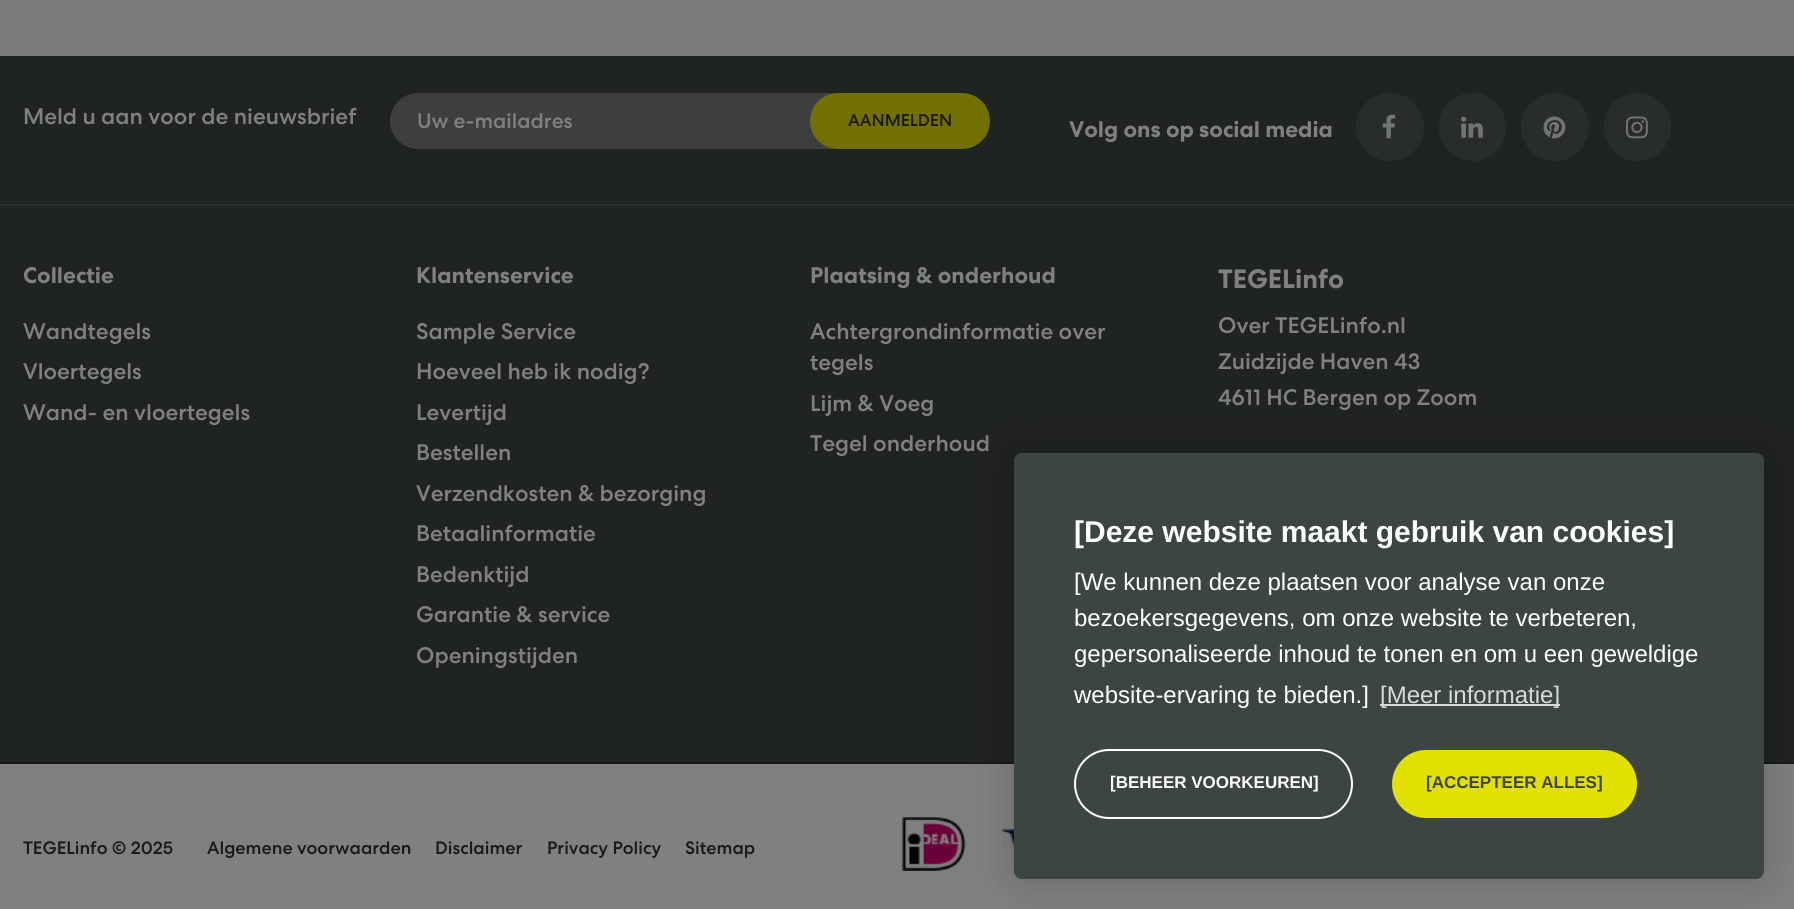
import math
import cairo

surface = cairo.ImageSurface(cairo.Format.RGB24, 1794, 909)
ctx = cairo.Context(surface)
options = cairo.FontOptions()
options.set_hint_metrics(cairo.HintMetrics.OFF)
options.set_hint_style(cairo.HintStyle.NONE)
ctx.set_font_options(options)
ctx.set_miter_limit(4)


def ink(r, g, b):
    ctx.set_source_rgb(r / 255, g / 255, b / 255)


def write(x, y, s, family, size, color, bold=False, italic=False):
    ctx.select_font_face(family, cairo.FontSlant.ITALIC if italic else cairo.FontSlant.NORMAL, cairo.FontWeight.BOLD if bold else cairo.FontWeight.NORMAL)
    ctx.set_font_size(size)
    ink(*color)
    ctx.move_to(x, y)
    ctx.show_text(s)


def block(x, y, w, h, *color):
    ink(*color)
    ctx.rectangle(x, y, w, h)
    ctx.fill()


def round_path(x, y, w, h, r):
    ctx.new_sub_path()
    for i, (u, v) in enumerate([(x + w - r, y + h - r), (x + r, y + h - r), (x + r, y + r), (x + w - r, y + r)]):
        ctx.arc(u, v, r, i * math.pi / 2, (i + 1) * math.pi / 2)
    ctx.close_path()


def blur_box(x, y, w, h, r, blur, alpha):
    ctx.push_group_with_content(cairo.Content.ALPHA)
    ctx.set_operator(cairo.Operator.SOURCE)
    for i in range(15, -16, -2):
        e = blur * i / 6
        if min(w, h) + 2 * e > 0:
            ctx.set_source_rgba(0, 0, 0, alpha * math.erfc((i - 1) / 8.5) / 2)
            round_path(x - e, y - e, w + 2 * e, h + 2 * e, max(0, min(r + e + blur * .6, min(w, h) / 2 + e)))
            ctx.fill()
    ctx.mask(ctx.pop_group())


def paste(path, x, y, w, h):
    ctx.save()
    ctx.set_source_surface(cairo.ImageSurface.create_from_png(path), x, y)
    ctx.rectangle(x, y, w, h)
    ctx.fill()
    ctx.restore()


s1 = dict(family="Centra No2 Medium", size=22.5, color=(128, 128, 128))
s2 = dict(family="Centra No2 Medium", size=21, color=(128, 128, 128))
s3 = dict(family="Centra No2 Medium", size=17, color=(26, 26, 26))
s4 = dict(family="Centra No2", size=22.5, color=(128, 128, 128), bold=True)
s5 = dict(family="Centra No2", size=26.5, color=(128, 128, 128), bold=True)
s6 = dict(family="Centra No2 Medium", size=18, color=(26, 26, 26))
s7 = dict(family="Liberation Sans", size=30, color=(255, 255, 255), bold=True)
s8 = dict(family="Liberation Sans", size=24, color=(255, 255, 255))
s9 = dict(family="Liberation Sans", size=24, color=(216, 218, 217))
s10 = dict(family="Liberation Sans", size=17, color=(255, 255, 255), bold=True)
s11 = dict(family="Liberation Sans", size=17, color=(61, 69, 67), bold=True)

ink(122, 124, 124)
ctx.paint()
block(0, 56, 1794, 148, 31, 35, 34)
block(0, 204, 1794, 2, 43, 48, 47)
write(23, 124, "Meld u aan voor de nieuwsbrief", **s1)
ink(60, 63, 62)
ctx.new_path()
ctx.move_to(418, 93)
ctx.line_to(848, 93)
ctx.line_to(848, 149)
ctx.line_to(418, 149)
ctx.curve_to(402.5, 149, 390, 136.5, 390, 121)
ctx.curve_to(390, 105.5, 402.5, 93, 418, 93)
ctx.close_path()
ctx.fill()
ctx.set_source_rgba(0, 0, 0, 0.07)
ctx.new_path()
ctx.move_to(418, 94)
ctx.line_to(848, 94)
ctx.line_to(848, 93)
ctx.line_to(418, 93)
ctx.curve_to(403, 93, 390, 106, 390, 122)
ctx.curve_to(390, 107, 402, 94, 418, 94)
ctx.close_path()
ctx.fill()
write(417, 128, "Uw e-mailadres", **s2)
ink(113, 112, 0)
round_path(810, 93, 180, 56, 28)
ctx.fill()
write(848, 126, "AANMELDEN", **s3)
write(1069, 137, "Volg ons op social media", **s4)
ink(40, 44, 43)
ctx.new_path()
ctx.arc(1390, 127, 34, 0, 2 * math.pi)
ctx.fill()
paste("pic1.png", 1382, 114, 14, 25)
round_path(1439, 93, 67, 68, 33.5)
ctx.fill()
paste("pic2.png", 1461, 116, 22, 22)
ctx.arc(1555, 127, 34, 0, 2 * math.pi)
ctx.fill()
paste("pic3.png", 1543, 116, 23, 23)
round_path(1604, 93, 67, 68, 33.5)
ctx.fill()
paste("pic4.png", 1626, 116, 22, 23)
block(0, 206, 1794, 556, 31, 35, 34)
write(23, 283, "Collectie", **s4)
write(23, 339, "Wandtegels", **s1)
write(23, 379, "Vloertegels", **s1)
write(23, 420, "Wand- en vloertegels", **s1)
write(416, 283, "Klantenservice", **s4)
write(416, 339, "Sample Service", **s1)
write(416, 379, "Hoeveel heb ik nodig?", **s1)
write(416, 420, "Levertijd", **s1)
write(416, 460, "Bestellen", **s1)
write(416, 501, "Verzendkosten & bezorging", **s1)
write(416, 541, "Betaalinformatie", **s1)
write(416, 582, "Bedenktijd", **s1)
write(416, 622, "Garantie & service", **s1)
write(416, 663, "Openingstijden", **s1)
write(810, 283, "Plaatsing & onderhoud", **s4)
write(810, 339, "Achtergrondinformatie over", **s1)
write(810, 370, "tegels", **s1)
write(810, 411, "Lijm & Voeg", **s1)
write(810, 451, "Tegel onderhoud", **s1)
write(1218, 288, "TEGELinfo", **s5)
write(1218, 333, "Over TEGELinfo.nl", **s1)
write(1218, 369, "Zuidzijde Haven 43", **s1)
write(1218, 405, "4611 HC Bergen op Zoom", **s1)
block(0, 764, 1794, 145, 128, 128, 128)
block(0, 762, 1794, 2, 23, 23, 23)
write(23, 854, "TEGELinfo © 2025", **s6)
write(207, 854, "Algemene voorwaarden", **s6)
write(435, 854, "Disclaimer", **s6)
write(547, 854, "Privacy Policy", **s6)
write(685, 854, "Sitemap", **s6)
paste("pic5.png", 901, 817, 65, 54)
paste("pic6.png", 1002, 829, 12, 32)
ink(0, 0, 0)
blur_box(1014, 453, 750, 426, 8, 22.5, 0.2)
ink(61, 69, 67)
round_path(1014, 453, 750, 426, 8)
ctx.fill()
write(1074, 542, "[Deze website maakt gebruik van cookies]", **s7)
write(1074, 590, "[We kunnen deze plaatsen voor analyse van onze", **s8)
write(1074, 626, "bezoekersgegevens, om onze website te verbeteren,", **s8)
write(1074, 662, "gepersonaliseerde inhoud te tonen en om u een geweldige", **s8)
write(1074, 703, "website-ervaring te bieden.]", **s8)
block(1380, 704, 180, 2, 216, 218, 217)
write(1380, 703, "[Meer informatie]", **s9)
round_path(1075, 750, 277, 68, 34)
ink(255, 255, 255)
ctx.stroke()
write(1110, 788, "[BEHEER VOORKEUREN]", **s10)
ink(225, 224, 0)
round_path(1392, 750, 245, 68, 34)
ctx.fill()
write(1426, 788, "[ACCEPTEER ALLES]", **s11)
surface.write_to_png("screenshot.png")
